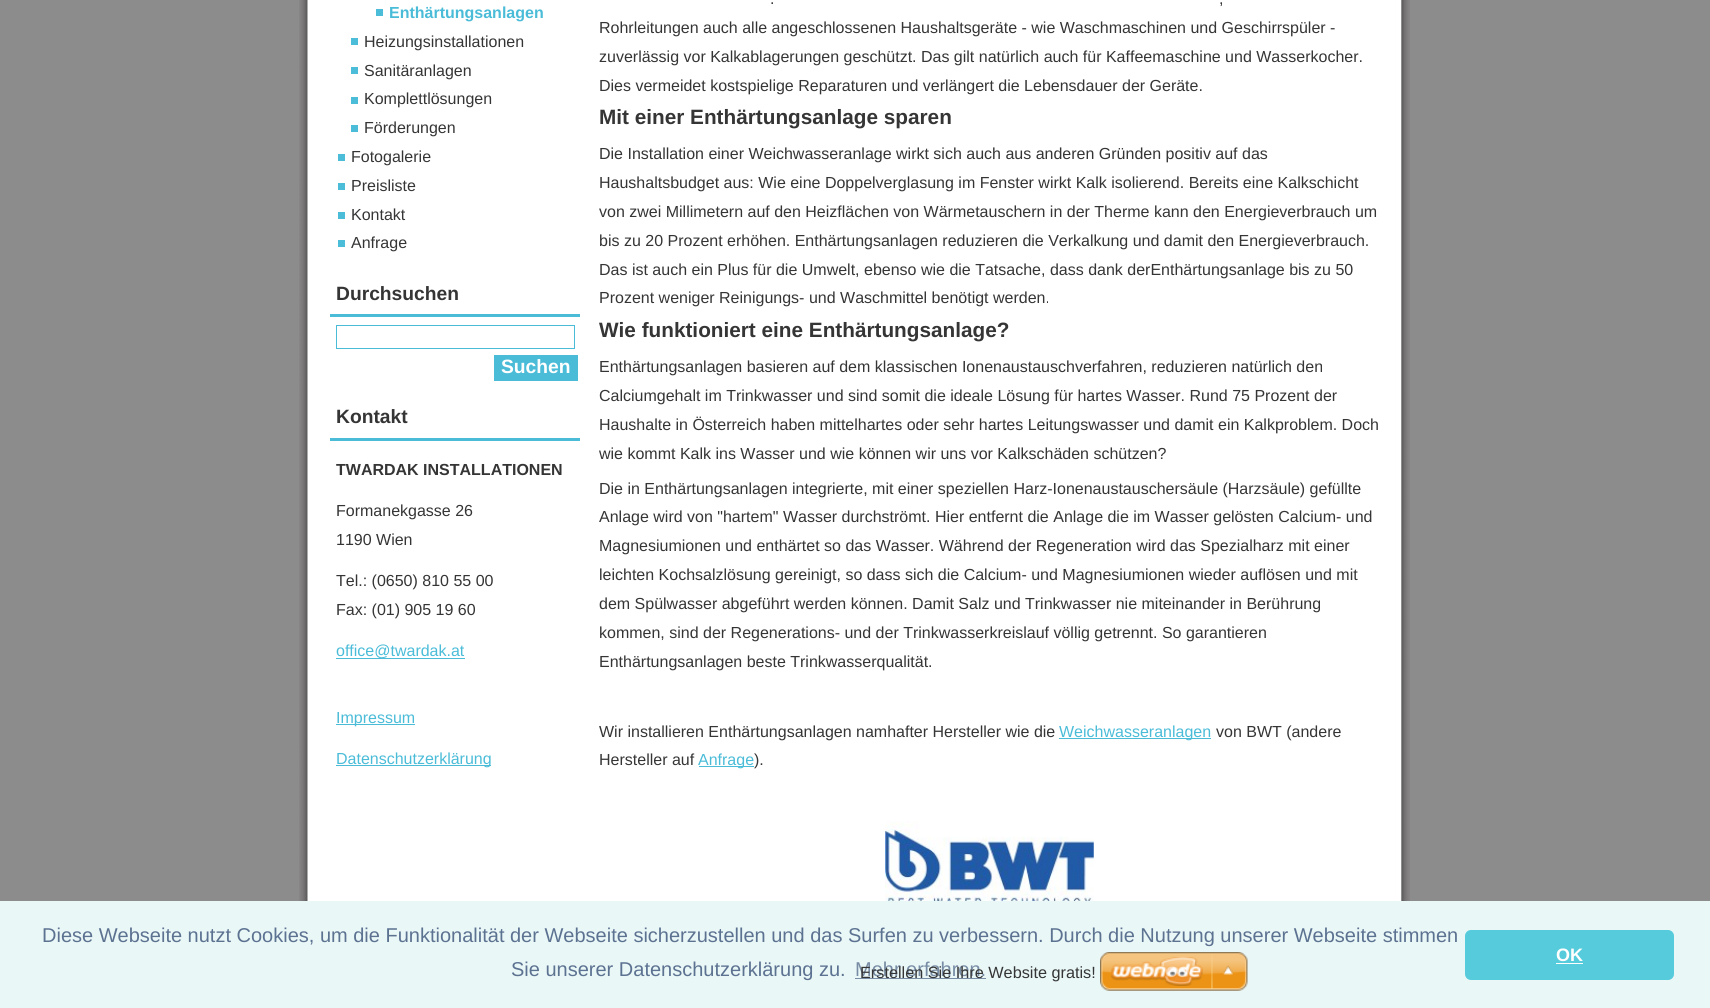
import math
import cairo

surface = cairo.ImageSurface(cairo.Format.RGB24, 1710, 1008)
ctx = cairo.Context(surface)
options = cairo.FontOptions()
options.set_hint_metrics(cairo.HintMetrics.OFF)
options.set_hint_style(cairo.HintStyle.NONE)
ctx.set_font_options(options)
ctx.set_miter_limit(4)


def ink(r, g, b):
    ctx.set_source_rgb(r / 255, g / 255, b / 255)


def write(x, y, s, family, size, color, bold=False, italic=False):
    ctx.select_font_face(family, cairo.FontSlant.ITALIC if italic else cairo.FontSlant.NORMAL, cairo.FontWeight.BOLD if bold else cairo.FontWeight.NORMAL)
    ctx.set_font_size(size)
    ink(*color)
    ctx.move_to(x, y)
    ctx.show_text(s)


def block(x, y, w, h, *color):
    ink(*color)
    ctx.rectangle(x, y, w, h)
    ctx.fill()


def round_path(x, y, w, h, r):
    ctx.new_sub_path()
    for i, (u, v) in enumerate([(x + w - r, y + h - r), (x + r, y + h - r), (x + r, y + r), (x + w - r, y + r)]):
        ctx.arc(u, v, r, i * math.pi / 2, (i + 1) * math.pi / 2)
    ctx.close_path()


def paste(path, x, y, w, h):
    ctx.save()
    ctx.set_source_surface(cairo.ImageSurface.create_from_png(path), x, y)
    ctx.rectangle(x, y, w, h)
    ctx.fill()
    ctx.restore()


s1 = dict(family="Liberation Sans", size=16, color=(75, 188, 216), bold=True)
s2 = dict(family="Liberation Sans", size=16, color=(53, 53, 53))
s3 = dict(family="Liberation Sans", size=19.25, color=(53, 53, 53), bold=True)
s4 = dict(family="Liberation Sans", size=19.25, color=(255, 255, 255), bold=True)
s5 = dict(family="Liberation Sans", size=16, color=(53, 53, 53), bold=True)
s6 = dict(family="Liberation Sans", size=16, color=(75, 188, 216))
s7 = dict(family="Liberation Sans", size=20.75, color=(53, 53, 53), bold=True)
s8 = dict(family="Liberation Sans", size=20, color=(92, 114, 145))
s9 = dict(family="Liberation Sans", size=20, color=(120, 141, 165))
s10 = dict(family="Liberation Sans", size=18, color=(255, 255, 255), bold=True)
s11 = dict(family="Liberation Sans", size=16.25, color=(53, 53, 53))

ink(140, 140, 140)
ctx.paint()
paste("pic1.png", 299, 0, 1111, 399)
paste("pic2.png", 299, 399, 1111, 502)
write(389, 18, "Enthärtungsanlagen", **s1)
block(376, 9, 7, 7, 75, 189, 216)
write(364, 47, "Heizungsinstallationen", **s2)
block(351, 38, 7, 7, 75, 189, 216)
write(364, 76, "Sanitäranlagen", **s2)
block(351, 67, 7, 7, 75, 189, 216)
write(364, 104, "Komplettlösungen", **s2)
block(351, 97, 7, 7, 75, 189, 216)
write(364, 133, "Förderungen", **s2)
block(351, 125, 7, 7, 75, 189, 216)
write(351, 162, "Fotogalerie", **s2)
block(338, 154, 7, 7, 75, 189, 216)
write(351, 191, "Preisliste", **s2)
block(338, 183, 7, 7, 75, 189, 216)
write(351, 220, "Kontakt", **s2)
block(338, 212, 7, 7, 75, 189, 216)
write(351, 248, "Anfrage", **s2)
block(338, 240, 7, 7, 75, 189, 216)
block(330, 314, 250, 3, 75, 188, 216)
write(336, 300, "Durchsuchen", **s3)
ctx.rectangle(336.5, 325.5, 238, 23)
ink(75, 188, 216)
ctx.set_line_width(1)
ctx.stroke()
block(494, 355, 84, 26, 75, 188, 216)
write(501, 373, "Suchen", **s4)
block(330, 438, 250, 3, 75, 188, 216)
write(336, 423, "Kontakt", **s3)
write(336, 475, "TWARDAK INSTALLATIONEN", **s5)
write(336, 516, "Formanekgasse 26", **s2)
write(336, 545, "1190 Wien", **s2)
write(336, 586, "Tel.: (0650) 810 55 00", **s2)
write(336, 615, "Fax: (01) 905 19 60", **s2)
block(336, 658, 59, 1, 75, 188, 216)
write(336, 656, "office@twardak.at", **s6)
block(395, 658, 70, 1, 75, 188, 216)
block(336, 724, 79, 1, 75, 188, 216)
write(336, 723, "Impressum", **s6)
block(336, 765, 155, 1, 75, 188, 216)
write(336, 764, "Datenschutzerklärung", **s6)
write(770, 4, ".", **s2)
write(1219, 4, ",", **s2)
write(599, 33, "Rohrleitungen auch alle angeschlossenen Haushaltsgeräte - wie Waschmaschinen und Geschirrspüler -", **s2)
write(599, 62, "zuverlässig vor Kalkablagerungen geschützt. Das gilt natürlich auch für Kaffeemaschine und Wasserkocher.", **s2)
write(599, 91, "Dies vermeidet kostspielige Reparaturen und verlängert die Lebensdauer der Geräte.", **s2)
write(599, 124, "Mit einer Enthärtungsanlage sparen", **s7)
write(599, 159, "Die Installation einer Weichwasseranlage wirkt sich auch aus anderen Gründen positiv auf das", **s2)
write(599, 188, "Haushaltsbudget aus: Wie eine Doppelverglasung im Fenster wirkt Kalk isolierend. Bereits eine Kalkschicht", **s2)
write(599, 217, "von zwei Millimetern auf den Heizflächen von Wärmetauschern in der Therme kann den Energieverbrauch um", **s2)
write(599, 246, "bis zu 20 Prozent erhöhen. Enthärtungsanlagen reduzieren die Verkalkung und damit den Energieverbrauch.", **s2)
write(599, 275, "Das ist auch ein Plus für die Umwelt, ebenso wie die Tatsache, dass dank derEnthärtungsanlage bis zu 50", **s2)
write(599, 303, "Prozent weniger Reinigungs- und Waschmittel benötigt werden.", **s2)
write(599, 337, "Wie funktioniert eine Enthärtungsanlage?", **s7)
write(599, 372, "Enthärtungsanlagen basieren auf dem klassischen Ionenaustauschverfahren, reduzieren natürlich den", **s2)
write(599, 401, "Calciumgehalt im Trinkwasser und sind somit die ideale Lösung für hartes Wasser. Rund 75 Prozent der", **s2)
write(599, 430, "Haushalte in Österreich haben mittelhartes oder sehr hartes Leitungswasser und damit ein Kalkproblem. Doch", **s2)
write(599, 459, "wie kommt Kalk ins Wasser und wie können wir uns vor Kalkschäden schützen?", **s2)
write(599, 494, "Die in Enthärtungsanlagen integrierte, mit einer speziellen Harz-Ionenaustauschersäule (Harzsäule) gefüllte", **s2)
write(599, 522, "Anlage wird von \"hartem\" Wasser durchströmt. Hier entfernt die Anlage die im Wasser gelösten Calcium- und", **s2)
write(599, 551, "Magnesiumionen und enthärtet so das Wasser. Während der Regeneration wird das Spezialharz mit einer", **s2)
write(599, 580, "leichten Kochsalzlösung gereinigt, so dass sich die Calcium- und Magnesiumionen wieder auflösen und mit", **s2)
write(599, 609, "dem Spülwasser abgeführt werden können. Damit Salz und Trinkwasser nie miteinander in Berührung", **s2)
write(599, 638, "kommen, sind der Regenerations- und der Trinkwasserkreislauf völlig getrennt. So garantieren", **s2)
write(599, 667, "Enthärtungsanlagen beste Trinkwasserqualität.", **s2)
write(599, 737, "Wir installieren Enthärtungsanlagen namhafter Hersteller wie die", **s2)
block(1059, 738, 152, 1, 75, 188, 216)
write(1059, 737, "Weichwasseranlagen", **s6)
write(1216, 737, "von BWT (andere", **s2)
write(599, 765, "Hersteller auf", **s2)
block(699, 766, 55, 1, 75, 188, 216)
write(698, 765, "Anfrage", **s6)
write(754, 765, ").", **s2)
paste("pic3.png", 885, 821, 209, 80)
block(0, 901, 1710, 107, 234, 247, 247)
write(42, 942, "Diese Webseite nutzt Cookies, um die Funktionalität der Webseite sicherzustellen und das Surfen zu verbessern. Durch die Nutzung unserer Webseite stimmen", **s8)
write(511, 976, "Sie unserer Datenschutzerklärung zu.", **s8)
write(855, 976, "Mehr erfahren.", **s9)
block(855, 978, 131, 1, 120, 141, 165)
ink(86, 203, 219)
round_path(1465, 930, 209, 50, 6)
ctx.fill()
write(1556, 961, "OK", **s10)
block(1556, 963, 27, 1, 255, 255, 255)
write(860, 978, "Erstellen Sie Ihre Website gratis!", **s11)
paste("pic4.png", 1100, 952, 148, 39)
surface.write_to_png("screenshot.png")
